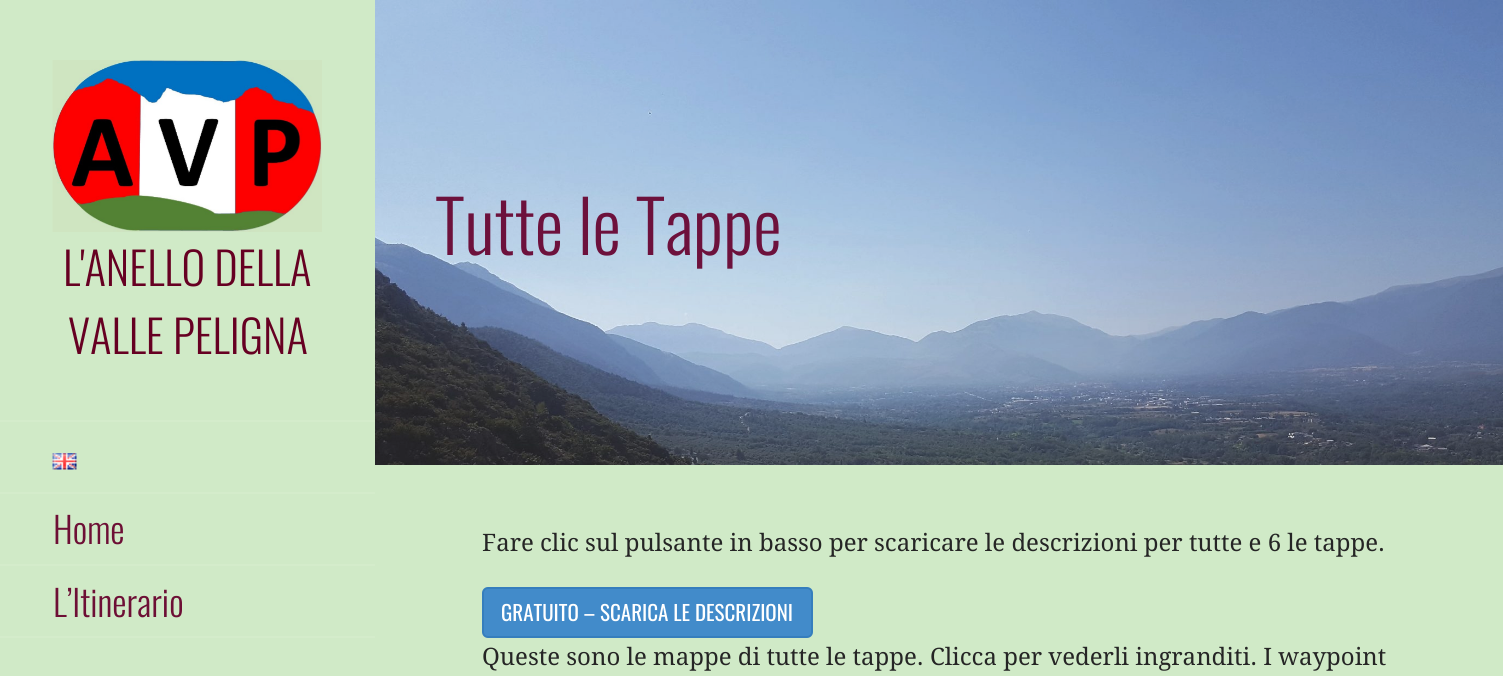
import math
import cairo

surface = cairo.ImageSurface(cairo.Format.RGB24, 1503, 676)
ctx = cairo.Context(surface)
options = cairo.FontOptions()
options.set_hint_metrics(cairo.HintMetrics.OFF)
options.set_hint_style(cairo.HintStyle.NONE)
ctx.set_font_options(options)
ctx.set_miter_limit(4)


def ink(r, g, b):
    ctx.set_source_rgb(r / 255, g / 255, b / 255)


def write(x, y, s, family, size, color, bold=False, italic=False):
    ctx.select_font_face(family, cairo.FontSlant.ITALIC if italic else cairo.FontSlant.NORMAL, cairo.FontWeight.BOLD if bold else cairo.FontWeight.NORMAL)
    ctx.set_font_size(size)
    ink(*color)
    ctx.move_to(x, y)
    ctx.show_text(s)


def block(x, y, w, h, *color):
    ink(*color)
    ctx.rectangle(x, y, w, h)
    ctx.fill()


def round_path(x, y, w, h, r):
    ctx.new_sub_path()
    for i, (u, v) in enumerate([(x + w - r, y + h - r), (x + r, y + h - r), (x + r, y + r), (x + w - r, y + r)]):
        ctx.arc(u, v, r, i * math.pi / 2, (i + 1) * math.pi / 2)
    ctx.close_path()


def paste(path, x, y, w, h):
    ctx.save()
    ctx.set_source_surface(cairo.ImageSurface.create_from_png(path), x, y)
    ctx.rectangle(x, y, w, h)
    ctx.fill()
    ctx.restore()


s1 = dict(family="Oswald Light", size=72, color=(109, 17, 60))
s2 = dict(family="Oswald Light", size=45, color=(102, 0, 34))
s3 = dict(family="Oswald Light", size=36, color=(109, 15, 53))
s4 = dict(family="Droid Serif", size=24, color=(37, 37, 37))
s5 = dict(family="Oswald", size=21, color=(255, 255, 255))

ink(208, 234, 199)
ctx.paint()
paste("pic1.png", 375, 0, 1128, 465)
write(435, 255, "Tutte le Tappe", **s1)
paste("pic2.png", 52, 60, 270, 172)
write(63, 286, "L'ANELLO DELLA", **s2)
write(68, 354, "VALLE PELIGNA", **s2)
block(0, 420, 375, 2, 212, 236, 203)
block(0, 492, 375, 2, 212, 236, 203)
paste("pic3.png", 52, 453, 25, 17)
block(0, 564, 375, 2, 212, 236, 203)
write(53, 544, "Home", **s3)
block(0, 636, 375, 2, 212, 236, 203)
write(53, 617, "L’Itinerario", **s3)
write(482, 551, "Fare clic sul pulsante in basso per scaricare le descrizioni per tutte e 6 le tappe.", **s4)
ink(66, 139, 202)
round_path(483, 588, 329, 49, 5)
ctx.fill_preserve()
ink(53, 126, 189)
ctx.stroke()
write(501, 621, "GRATUITO – SCARICA LE DESCRIZIONI", **s5)
write(482, 665, "Queste sono le mappe di tutte le tappe. Clicca per vederli ingranditi. I waypoint", **s4)
surface.write_to_png("screenshot.png")
